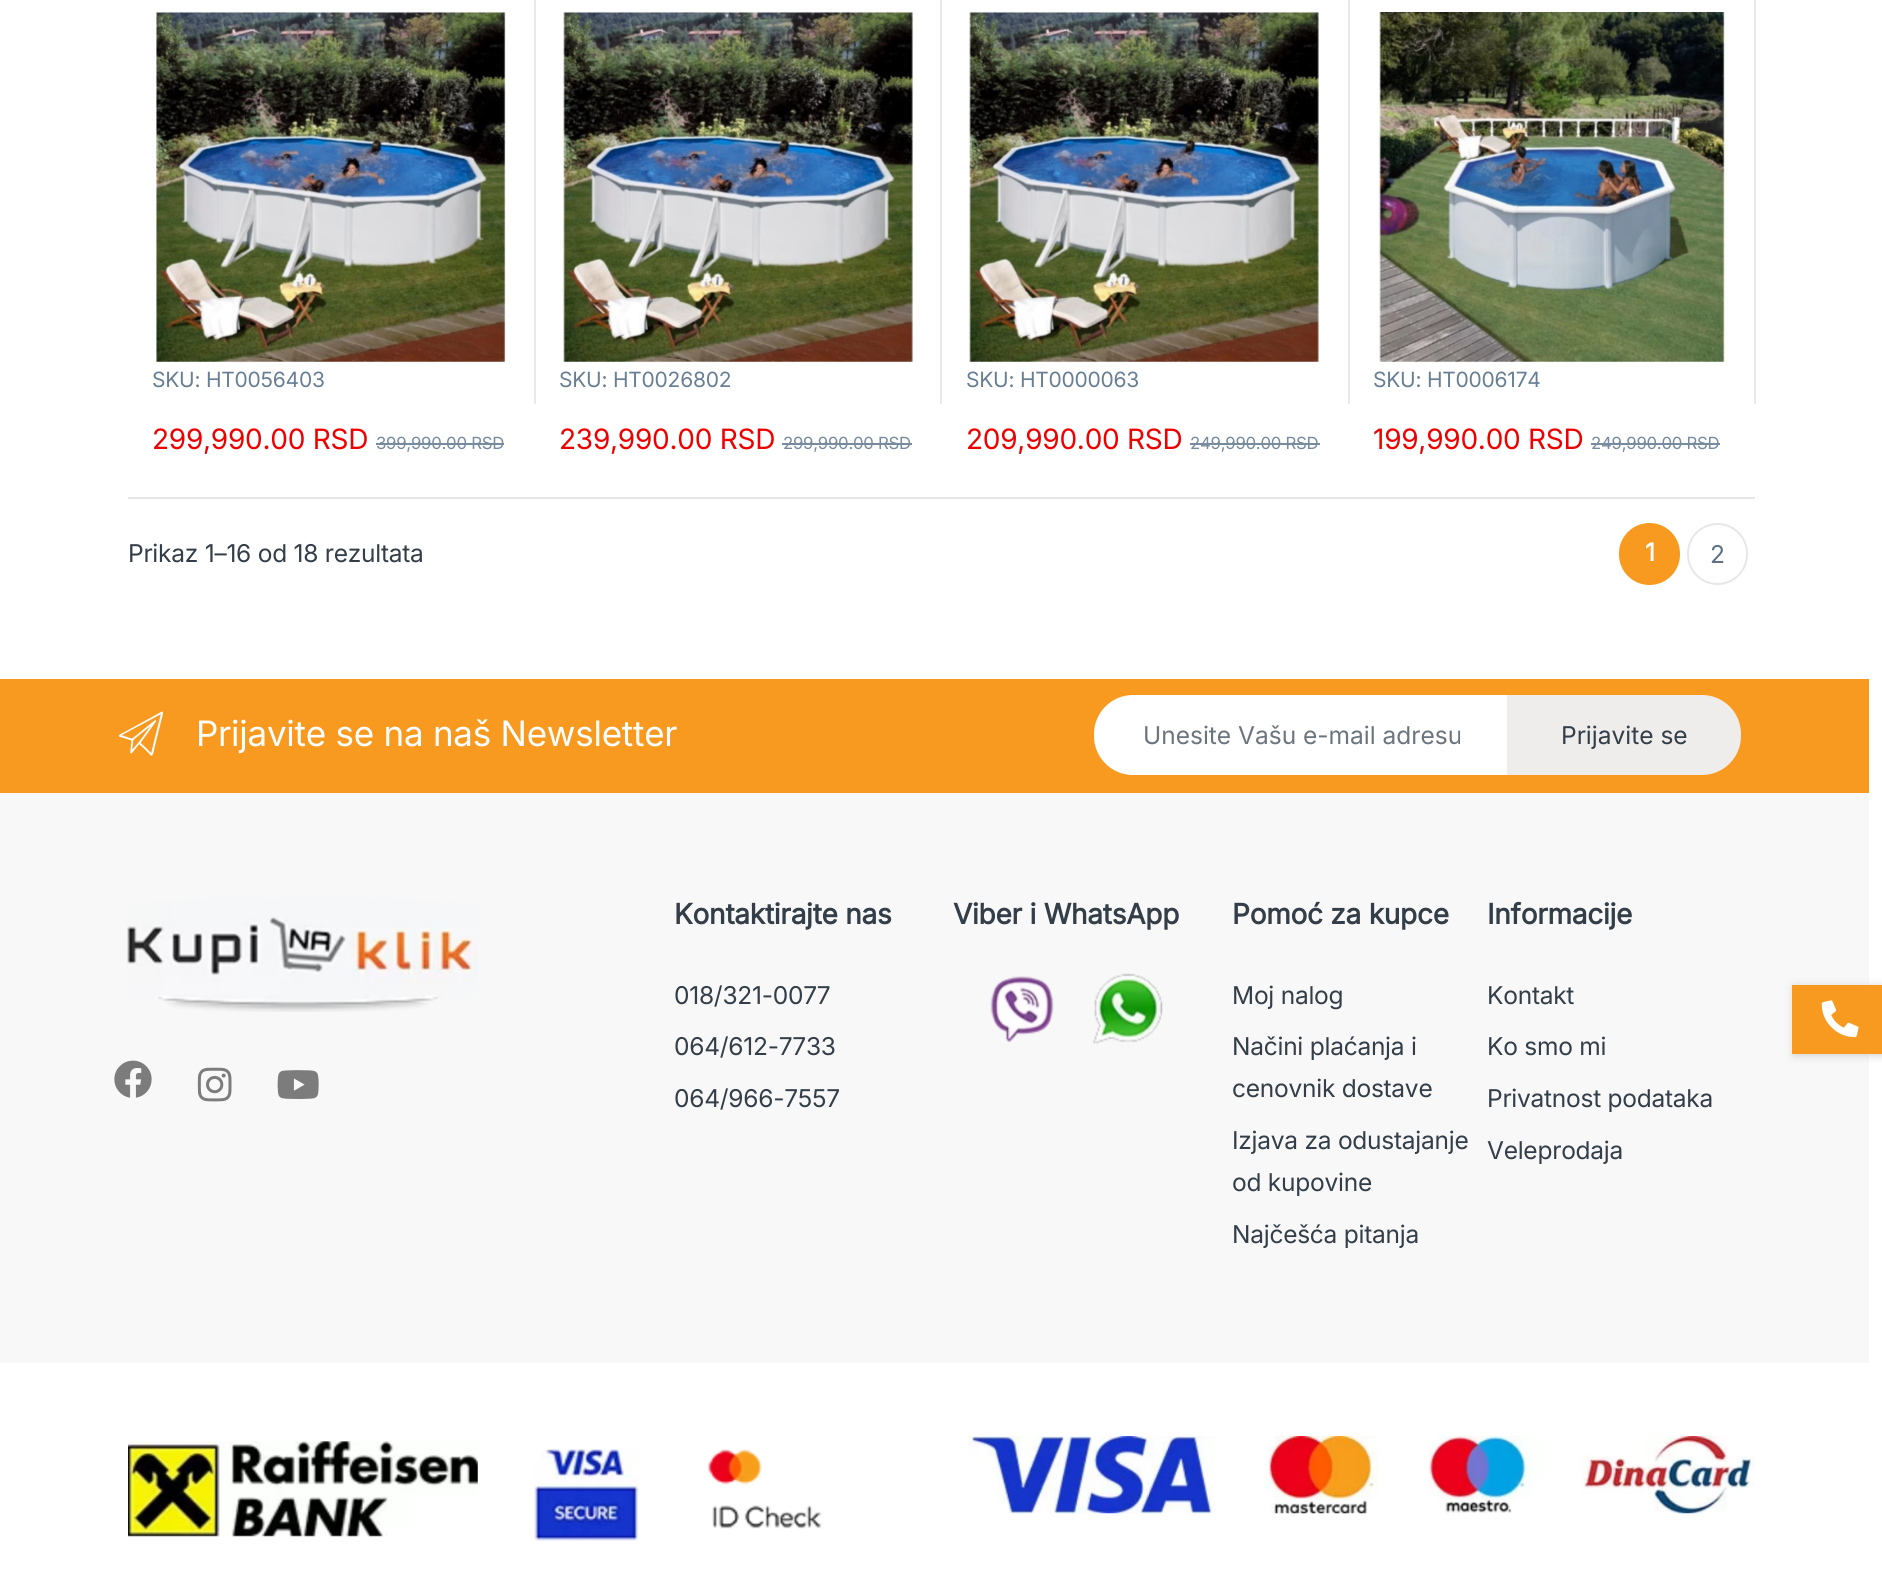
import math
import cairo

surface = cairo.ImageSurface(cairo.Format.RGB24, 1882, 1573)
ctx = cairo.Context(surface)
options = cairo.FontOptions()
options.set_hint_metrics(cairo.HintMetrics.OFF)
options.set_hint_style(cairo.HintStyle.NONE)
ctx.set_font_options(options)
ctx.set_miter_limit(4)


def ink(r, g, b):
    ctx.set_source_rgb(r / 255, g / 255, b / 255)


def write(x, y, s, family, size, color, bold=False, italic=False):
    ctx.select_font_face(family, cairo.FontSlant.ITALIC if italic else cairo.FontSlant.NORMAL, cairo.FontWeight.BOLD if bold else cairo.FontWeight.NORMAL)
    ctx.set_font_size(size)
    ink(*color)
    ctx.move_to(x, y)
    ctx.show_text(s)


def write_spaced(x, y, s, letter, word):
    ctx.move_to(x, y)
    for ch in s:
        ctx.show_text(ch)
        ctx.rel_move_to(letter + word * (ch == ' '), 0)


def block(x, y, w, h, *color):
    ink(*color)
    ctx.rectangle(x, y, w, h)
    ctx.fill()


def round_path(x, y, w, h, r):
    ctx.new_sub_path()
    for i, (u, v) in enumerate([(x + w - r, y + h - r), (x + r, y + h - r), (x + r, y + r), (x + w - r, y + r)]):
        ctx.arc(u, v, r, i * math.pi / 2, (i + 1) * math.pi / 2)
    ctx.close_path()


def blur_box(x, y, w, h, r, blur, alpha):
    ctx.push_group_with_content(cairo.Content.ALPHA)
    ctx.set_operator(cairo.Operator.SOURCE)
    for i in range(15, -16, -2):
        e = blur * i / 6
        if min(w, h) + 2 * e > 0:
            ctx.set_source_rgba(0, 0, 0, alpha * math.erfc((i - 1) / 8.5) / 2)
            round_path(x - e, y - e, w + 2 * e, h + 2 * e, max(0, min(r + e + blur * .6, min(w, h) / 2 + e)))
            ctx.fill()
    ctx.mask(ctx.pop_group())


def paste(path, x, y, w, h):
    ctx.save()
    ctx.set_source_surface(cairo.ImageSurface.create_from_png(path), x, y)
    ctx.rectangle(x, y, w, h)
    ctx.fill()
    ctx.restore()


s1 = dict(family="Inter", size=24.5, color=(108, 117, 125))
s2 = dict(family="Inter", size=24.5, color=(51, 62, 72))

ink(255, 255, 255)
ctx.paint()
block(534, 0, 2, 404, 234, 234, 234)
paste("pic1.png", 156, 12, 350, 350)
ctx.select_font_face("Inter")
ctx.set_font_size(21)
ink(104, 126, 147)
write_spaced(152, 387, "SKU: HT0056403", -0.25, 0)
ctx.set_font_size(28)
ink(238, 0, 0)
write_spaced(152, 449, "299,990.00 RSD", -0.25, 0)
ctx.set_font_size(16.75)
ink(118, 139, 158)
write_spaced(376, 449, "399,990.00 RSD", -0.25, 0)
block(376, 443, 128, 2, 118, 139, 158)
block(940, 0, 2, 404, 234, 234, 234)
paste("pic2.png", 562, 12, 352, 350)
ctx.set_font_size(21)
ink(104, 126, 147)
write_spaced(559, 387, "SKU: HT0026802", -0.25, 0)
ctx.set_font_size(28)
ink(238, 0, 0)
write_spaced(559, 449, "239,990.00 RSD", -0.25, 0)
ctx.set_font_size(16.75)
ink(118, 139, 158)
write_spaced(783, 449, "299,990.00 RSD", -0.25, 0)
block(782, 443, 130, 2, 118, 139, 158)
block(1348, 0, 2, 404, 234, 234, 234)
paste("pic3.png", 968, 12, 352, 350)
ctx.set_font_size(21)
ink(104, 126, 147)
write_spaced(966, 387, "SKU: HT0000063", -0.25, 0)
ctx.set_font_size(28)
ink(238, 0, 0)
write_spaced(966, 449, "209,990.00 RSD", -0.25, 0)
ctx.set_font_size(16.75)
ink(118, 139, 158)
write_spaced(1190, 449, "249,990.00 RSD", -0.25, 0)
block(1190, 443, 130, 2, 118, 139, 158)
block(1754, 0, 2, 404, 234, 234, 234)
paste("pic4.png", 1378, 12, 350, 350)
ctx.set_font_size(21)
ink(104, 126, 147)
write_spaced(1373, 387, "SKU: HT0006174", -0.25, 0)
ctx.set_font_size(28)
ink(238, 0, 0)
write_spaced(1373, 449, "199,990.00 RSD", -0.25, 0)
ctx.set_font_size(16.75)
ink(118, 139, 158)
write_spaced(1591, 449, "249,990.00 RSD", -0.25, 0)
block(1591, 443, 129, 2, 118, 139, 158)
block(128, 497, 1627, 2, 231, 231, 231)
ctx.set_font_size(24.5)
ink(51, 62, 72)
write_spaced(128, 562, "Prikaz 1–16 od 18 rezultata", -0.25, 0)
ink(248, 154, 32)
round_path(1619, 523, 61, 62, 30.5)
ctx.fill()
ctx.select_font_face("Inter", cairo.FontSlant.NORMAL, cairo.FontWeight.BOLD)
ink(255, 255, 255)
write_spaced(1645, 561, "1", -0.25, 0)
round_path(1688, 524, 59, 60, 29.5)
ink(231, 231, 231)
ctx.stroke()
ctx.select_font_face("Inter")
ink(93, 113, 132)
write_spaced(1710, 563, "2", -0.25, 0)
block(0, 679, 1869, 114, 248, 154, 32)
paste("pic5.png", 118, 711, 45, 45)
ctx.set_font_size(35)
ink(255, 255, 255)
write_spaced(196, 746, "Prijavite se na naš Newsletter", -0.25, 0)
ctx.new_path()
ctx.move_to(1133, 695)
ctx.line_to(1509, 695)
ctx.line_to(1509, 775)
ctx.line_to(1133, 775)
ctx.curve_to(1111.5, 775, 1094, 757.5, 1094, 736)
ctx.line_to(1094, 734)
ctx.curve_to(1094, 712.5, 1111.5, 695, 1133, 695)
ctx.close_path()
ctx.fill()
ctx.save()
ctx.rectangle(1143, 719, 317, 30)
ctx.clip()
write(1143, 744, "Unesite Vašu e-mail adresu", **s1)
ctx.restore()
ink(239, 236, 236)
ctx.new_path()
ctx.move_to(1508, 696)
ctx.line_to(1702, 696)
ctx.curve_to(1723, 696, 1740, 713, 1740, 734)
ctx.line_to(1740, 736)
ctx.curve_to(1740, 757, 1723, 774, 1702, 774)
ctx.line_to(1508, 774)
ctx.close_path()
ctx.fill_preserve()
ctx.stroke()
write(1561, 744, "Prijavite se", **s2)
block(0, 793, 1869, 570, 248, 248, 248)
paste("pic6.png", 127, 898, 352, 114)
paste("pic7.png", 114, 1060, 38, 38)
paste("pic8.png", 197, 1067, 35, 35)
paste("pic9.png", 277, 1070, 42, 29)
ctx.select_font_face("Inter", cairo.FontSlant.NORMAL, cairo.FontWeight.BOLD)
ctx.set_font_size(28)
ink(51, 62, 72)
write_spaced(674, 924, "Kontaktirajte nas", -0.25, 0)
ctx.select_font_face("Inter")
ctx.set_font_size(24.5)
write_spaced(674, 1004, "018/321-0077", -0.25, 0)
write_spaced(674, 1055, "064/612-7733", -0.25, 0)
write_spaced(674, 1107, "064/966-7557", -0.25, 0)
ctx.select_font_face("Inter", cairo.FontSlant.NORMAL, cairo.FontWeight.BOLD)
ctx.set_font_size(28)
write_spaced(953, 924, "Viber i WhatsApp", -0.25, 0)
paste("pic10.png", 990, 976, 64, 67)
paste("pic11.png", 1092, 973, 71, 71)
write_spaced(1232, 924, "Pomoć za kupce", -0.25, 0)
ctx.select_font_face("Inter")
ctx.set_font_size(24.5)
write_spaced(1232, 1004, "Moj nalog", -0.25, 0)
write_spaced(1232, 1055, "Načini plaćanja i", -0.25, 0)
write_spaced(1232, 1097, "cenovnik dostave", -0.25, 0)
write_spaced(1232, 1149, "Izjava za odustajanje", -0.25, 0)
write_spaced(1232, 1191, "od kupovine", -0.25, 0)
write_spaced(1232, 1243, "Najčešća pitanja", -0.25, 0)
ctx.select_font_face("Inter", cairo.FontSlant.NORMAL, cairo.FontWeight.BOLD)
ctx.set_font_size(28)
write_spaced(1487, 924, "Informacije", -0.25, 0)
ctx.select_font_face("Inter")
ctx.set_font_size(24.5)
write_spaced(1487, 1004, "Kontakt", -0.25, 0)
write_spaced(1487, 1055, "Ko smo mi", -0.25, 0)
write_spaced(1487, 1107, "Privatnost podataka", -0.25, 0)
write_spaced(1487, 1159, "Veleprodaja", -0.25, 0)
paste("pic12.png", 128, 1441, 350, 96)
paste("pic13.png", 534, 1449, 105, 92)
paste("pic14.png", 707, 1449, 115, 80)
paste("pic15.png", 968, 1436, 787, 78)
ink(204, 204, 204)
blur_box(1794, 987, 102, 68, 0, 4.5, 1)
block(1792, 985, 90, 69, 248, 154, 32)
paste("pic16.png", 1821, 1000, 38, 38)
surface.write_to_png("screenshot.png")
